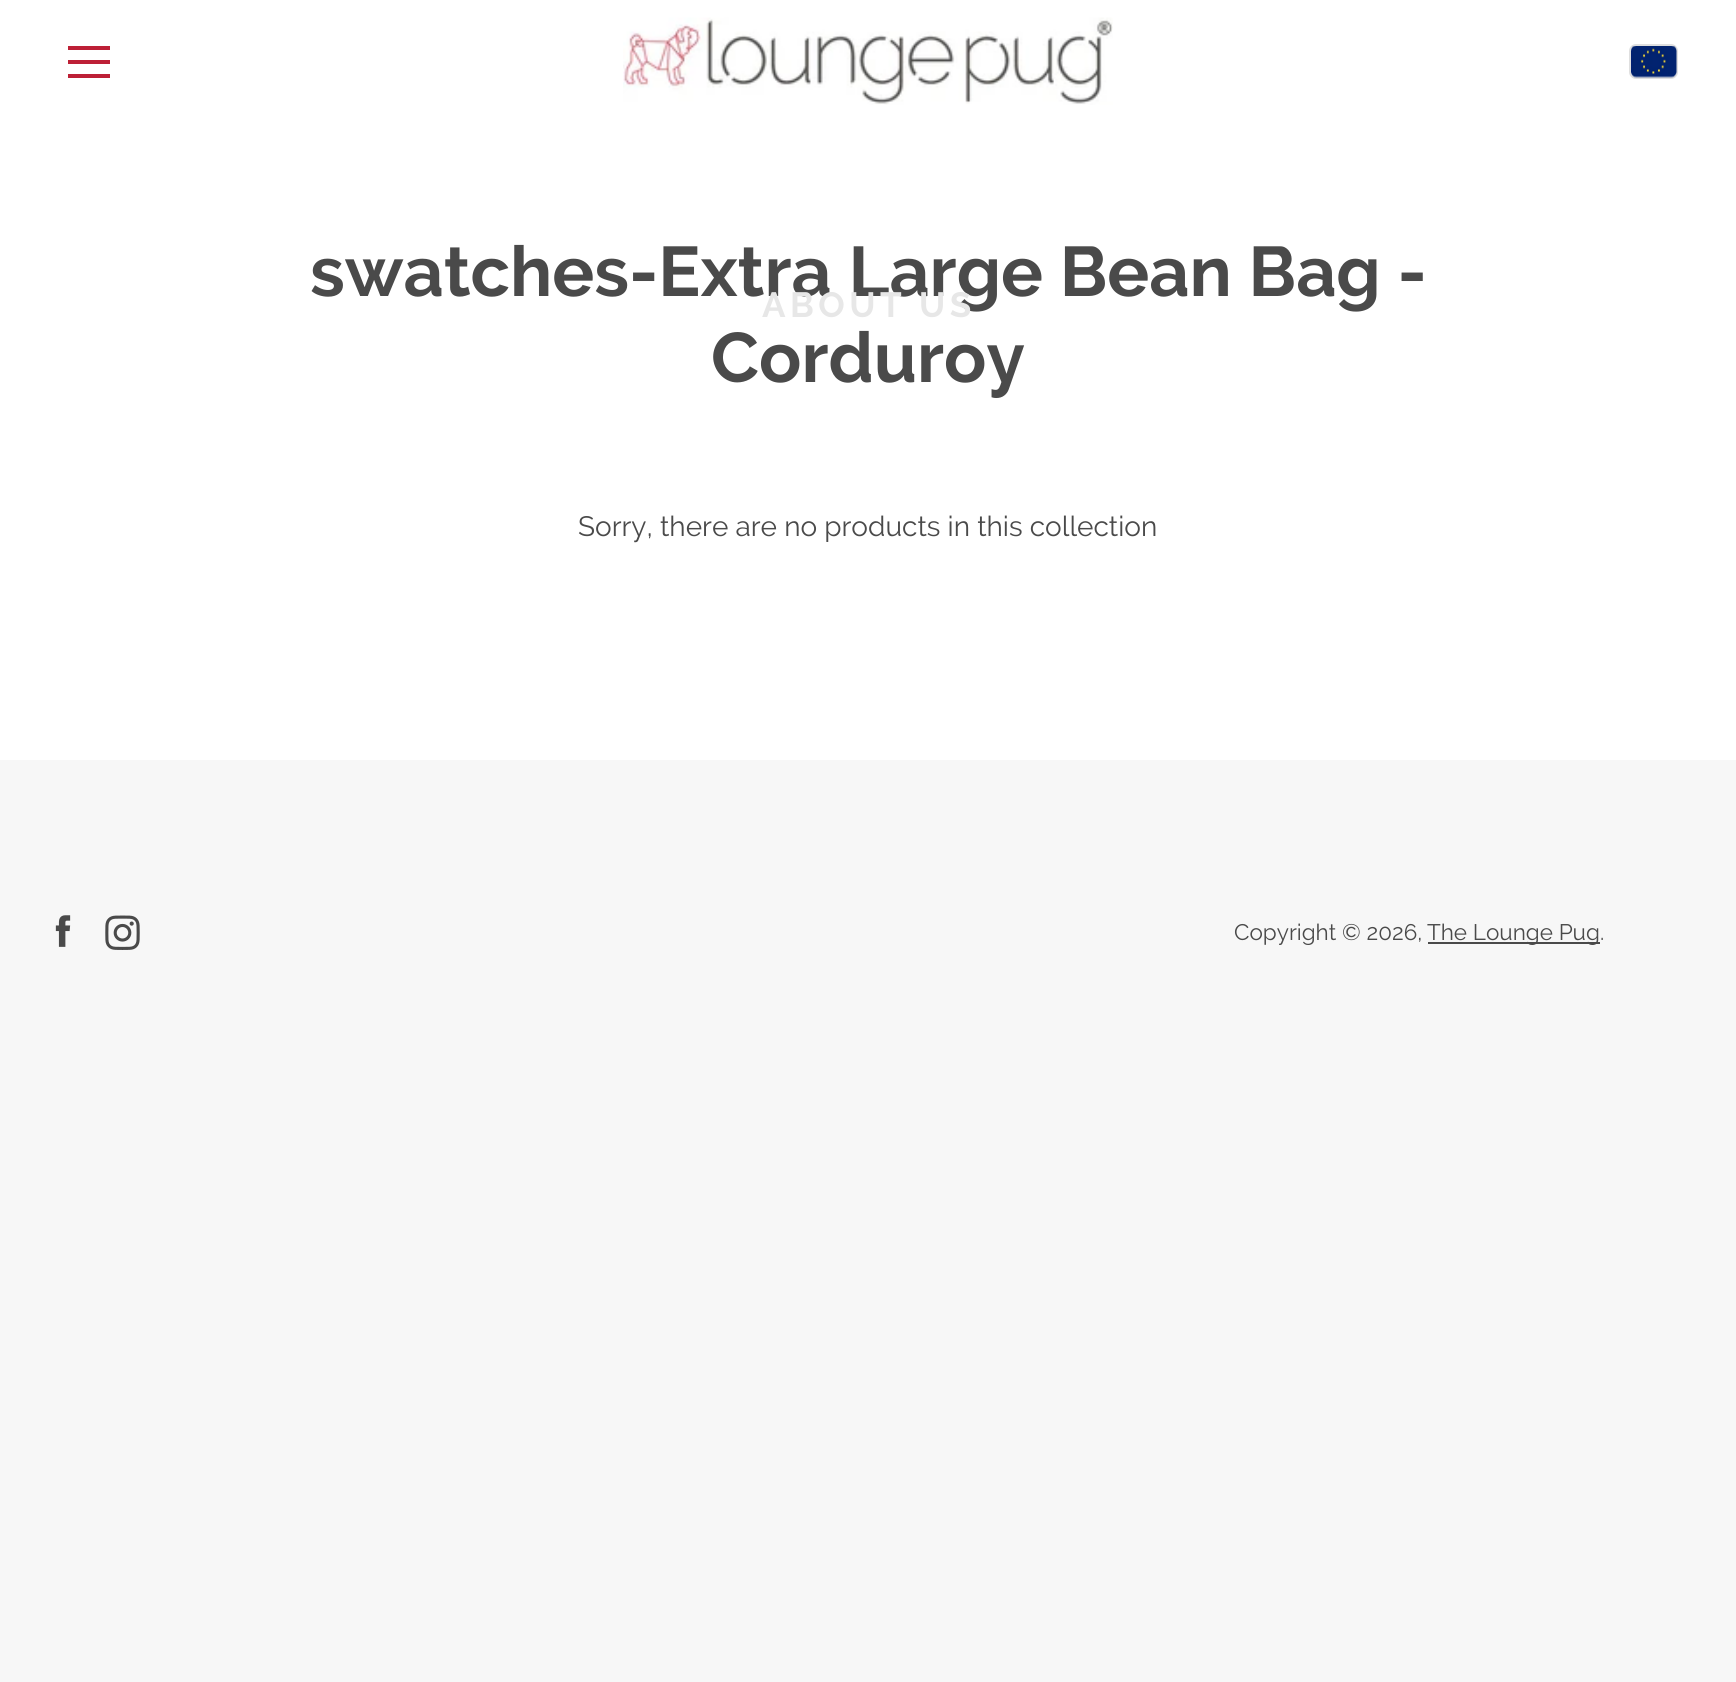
import math
import cairo

surface = cairo.ImageSurface(cairo.Format.RGB24, 1736, 1682)
ctx = cairo.Context(surface)
options = cairo.FontOptions()
options.set_hint_metrics(cairo.HintMetrics.OFF)
options.set_hint_style(cairo.HintStyle.NONE)
ctx.set_font_options(options)
ctx.set_miter_limit(4)


def ink(r, g, b):
    ctx.set_source_rgb(r / 255, g / 255, b / 255)


def write(x, y, s, family, size, color, bold=False, italic=False):
    ctx.select_font_face(family, cairo.FontSlant.ITALIC if italic else cairo.FontSlant.NORMAL, cairo.FontWeight.BOLD if bold else cairo.FontWeight.NORMAL)
    ctx.set_font_size(size)
    ink(*color)
    ctx.move_to(x, y)
    ctx.show_text(s)


def write_spaced(x, y, s, letter, word):
    ctx.move_to(x, y)
    for ch in s:
        ctx.show_text(ch)
        ctx.rel_move_to(letter + word * (ch == ' '), 0)


def block(x, y, w, h, *color):
    ink(*color)
    ctx.rectangle(x, y, w, h)
    ctx.fill()


def round_path(x, y, w, h, r):
    ctx.new_sub_path()
    for i, (u, v) in enumerate([(x + w - r, y + h - r), (x + r, y + h - r), (x + r, y + r), (x + w - r, y + r)]):
        ctx.arc(u, v, r, i * math.pi / 2, (i + 1) * math.pi / 2)
    ctx.close_path()


def paste(path, x, y, w, h):
    ctx.save()
    ctx.set_source_surface(cairo.ImageSurface.create_from_png(path), x, y)
    ctx.rectangle(x, y, w, h)
    ctx.fill()
    ctx.restore()


s1 = dict(family="Raleway", size=70, color=(74, 74, 74), bold=True)
s2 = dict(family="Raleway", size=28, color=(74, 74, 74))
s3 = dict(family="Raleway", size=22.5, color=(74, 74, 74))

ink(247, 247, 247)
ctx.paint()
block(0, 0, 1736, 760, 255, 255, 255)
write(310, 296, "swatches-Extra Large Bean Bag -", **s1)
write(711, 382, "Corduroy", **s1)
write(578, 536, "Sorry, there are no products in this collection", **s2)
paste("pic1.png", 55, 915, 16, 32)
paste("pic2.png", 105, 915, 35, 35)
write(1234, 940, "Copyright © 2026,", **s3)
block(1428, 942, 172, 2, 74, 74, 74)
write(1427, 940, "The Lounge Pug.", **s3)
paste("pic3.png", 623, 17, 490, 88)
round_path(1630, 45, 47, 33, 6)
ink(223, 223, 223)
ctx.stroke()
paste("pic4.png", 1631, 46, 46, 32)
block(68, 46, 42, 4, 189, 32, 54)
block(68, 60, 42, 4, 189, 32, 54)
block(68, 74, 42, 4, 189, 32, 54)
ctx.select_font_face("Raleway", cairo.FontSlant.NORMAL, cairo.FontWeight.BOLD)
ctx.set_font_size(35)
ink(231, 231, 231)
write_spaced(762, 317, "ABOUT US", 4.5, 0)
surface.write_to_png("screenshot.png")
